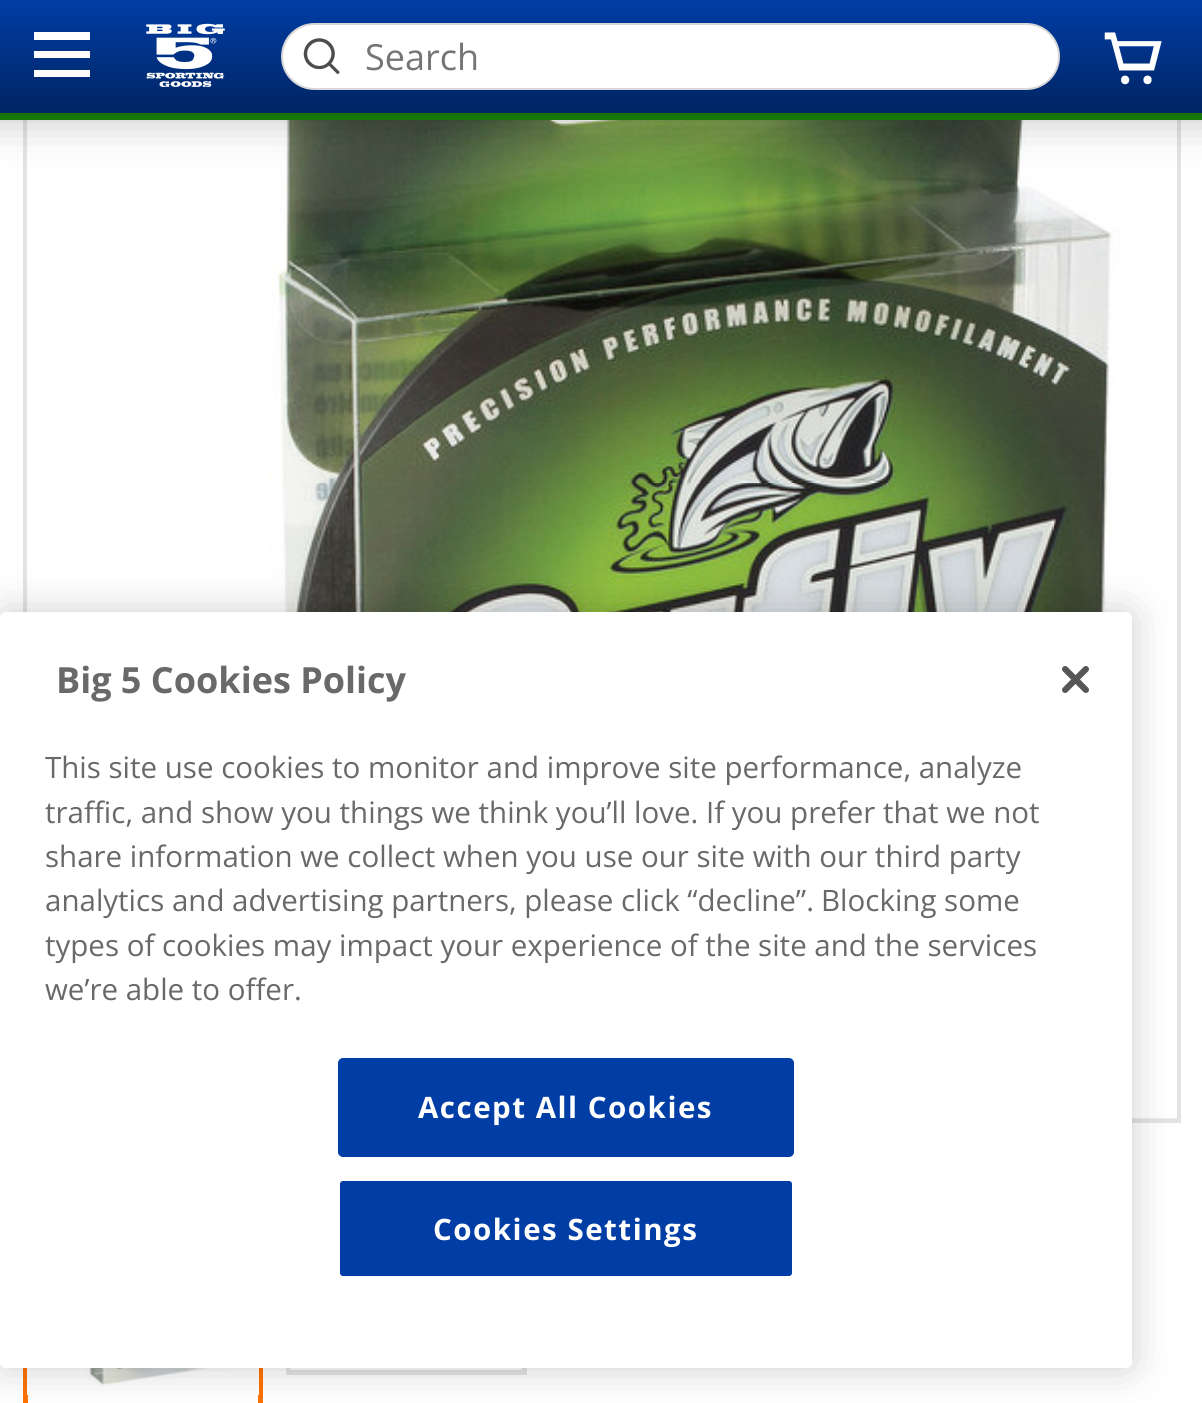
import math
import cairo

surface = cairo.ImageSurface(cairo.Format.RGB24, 1202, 1403)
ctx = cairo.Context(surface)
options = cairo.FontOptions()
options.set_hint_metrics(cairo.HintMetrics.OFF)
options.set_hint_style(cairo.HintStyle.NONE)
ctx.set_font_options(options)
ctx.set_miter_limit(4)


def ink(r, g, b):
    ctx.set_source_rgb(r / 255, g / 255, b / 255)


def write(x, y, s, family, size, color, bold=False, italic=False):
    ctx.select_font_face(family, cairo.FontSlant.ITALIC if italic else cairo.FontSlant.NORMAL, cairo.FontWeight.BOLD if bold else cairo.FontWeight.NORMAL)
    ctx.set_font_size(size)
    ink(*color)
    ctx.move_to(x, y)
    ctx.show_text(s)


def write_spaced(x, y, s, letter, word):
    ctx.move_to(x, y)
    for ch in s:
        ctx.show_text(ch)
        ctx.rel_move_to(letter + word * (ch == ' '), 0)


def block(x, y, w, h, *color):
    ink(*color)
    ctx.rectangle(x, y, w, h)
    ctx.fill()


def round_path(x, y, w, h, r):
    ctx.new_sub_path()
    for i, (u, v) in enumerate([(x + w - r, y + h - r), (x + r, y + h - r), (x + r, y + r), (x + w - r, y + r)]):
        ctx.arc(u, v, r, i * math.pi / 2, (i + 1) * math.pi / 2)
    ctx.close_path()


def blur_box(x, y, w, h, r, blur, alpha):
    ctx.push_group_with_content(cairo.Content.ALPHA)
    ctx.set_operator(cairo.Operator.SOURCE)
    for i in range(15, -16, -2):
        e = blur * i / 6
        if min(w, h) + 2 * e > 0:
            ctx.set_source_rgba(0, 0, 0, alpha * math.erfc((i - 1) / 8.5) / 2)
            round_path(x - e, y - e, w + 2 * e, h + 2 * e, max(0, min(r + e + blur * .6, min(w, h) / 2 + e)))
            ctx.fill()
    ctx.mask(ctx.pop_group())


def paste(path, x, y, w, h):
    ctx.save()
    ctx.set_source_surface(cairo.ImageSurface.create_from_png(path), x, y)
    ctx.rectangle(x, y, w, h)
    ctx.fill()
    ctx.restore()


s1 = dict(family="Open Sans", size=36, color=(117, 117, 117))
s2 = dict(family="Open Sans", size=36, color=(105, 105, 105), bold=True)
s3 = dict(family="Open Sans", size=29.5, color=(105, 105, 105))

ink(255, 255, 255)
ctx.paint()
ctx.rectangle(25.5, -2.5, 1153, 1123)
ink(227, 227, 227)
ctx.set_line_width(5)
ctx.stroke()
paste("pic1.png", 27, 120, 1150, 999)
ctx.rectangle(25.5, 1183.5, 235, 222)
ink(255, 114, 0)
ctx.stroke()
block(27, 1368, 232, 27, 255, 255, 255)
paste("pic2.png", 85, 1368, 146, 18)
ctx.rectangle(288.5, 1183.5, 236, 189)
ink(227, 227, 227)
ctx.stroke()
block(290, 1368, 1, 2, 255, 255, 255)
gradient = cairo.LinearGradient(602, 0, 602, 113)
gradient.add_color_stop_rgba(0, 0, 0.239, 0.647, 1)
gradient.add_color_stop_rgba(1, 0, 0.145, 0.388, 1)
ctx.set_source(gradient)
ctx.rectangle(0, 0, 1202, 113)
ctx.fill()
block(0, 113, 1202, 7, 29, 135, 13)
ctx.save()
ctx.set_fill_rule(cairo.FillRule.EVEN_ODD)
ctx.new_path()
ctx.move_to(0, 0)
ctx.line_to(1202, 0)
ctx.line_to(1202, 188)
ctx.line_to(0, 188)
ctx.close_path()
ctx.move_to(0, 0)
ctx.line_to(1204, 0)
ctx.line_to(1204, 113)
ctx.line_to(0, 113)
ctx.close_path()
ctx.clip()
ink(0, 0, 0)
blur_box(-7, -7, 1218, 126, 0, 22.5, 0.25)
ctx.restore()
ink(255, 255, 255)
ctx.new_path()
ctx.move_to(34, 32)
ctx.line_to(90, 32)
ctx.line_to(90, 40)
ctx.line_to(34, 40)
ctx.close_path()
ctx.move_to(34, 51)
ctx.line_to(90, 51)
ctx.line_to(90, 58)
ctx.line_to(34, 58)
ctx.close_path()
ctx.move_to(34, 70)
ctx.line_to(90, 70)
ctx.line_to(90, 77)
ctx.line_to(34, 77)
ctx.close_path()
ctx.fill()
paste("pic3.png", 146, 23, 79, 64)
round_path(282, 24, 777, 65, 32.5)
ctx.fill_preserve()
ink(215, 215, 215)
ctx.set_line_width(2)
ctx.stroke()
paste("pic4.png", 303, 38, 37, 37)
write(365, 70, "Search", **s1)
paste("pic5.png", 1104, 32, 58, 53)
ink(0, 0, 0)
blur_box(0, 612, 1132, 756, 6, 20, 0.2)
ink(255, 255, 255)
round_path(0, 612, 1132, 756, 6)
ctx.fill()
write(56, 693, "Big 5 Cookies Policy", **s2)
write(45, 778, "This site use cookies to monitor and improve site performance, analyze", **s3)
write(45, 823, "traffic, and show you things we think you’ll love.", **s3)
write(706, 823, "If you prefer that we not", **s3)
write(45, 867, "share information we collect when you use our site with our third party", **s3)
write(45, 911, "analytics and advertising partners, please click “decline”.", **s3)
write(821, 911, "Blocking some", **s3)
write(45, 956, "types of cookies may impact your experience of the site and the services", **s3)
write(45, 1000, "we’re able to offer.", **s3)
paste("pic6.png", 1062, 666, 27, 27)
ink(0, 61, 165)
round_path(339, 1059, 454, 97, 4)
ctx.fill_preserve()
ctx.stroke()
ctx.select_font_face("Open Sans", cairo.FontSlant.NORMAL, cairo.FontWeight.BOLD)
ink(255, 255, 255)
write_spaced(418, 1118, "Accept All Cookies", 1.5, 0)
ink(0, 61, 165)
round_path(339, 1180, 454, 97, 4)
ctx.fill_preserve()
ink(255, 255, 255)
ctx.stroke()
write_spaced(433, 1240, "Cookies Settings", 1.5, 0)
surface.write_to_png("screenshot.png")
